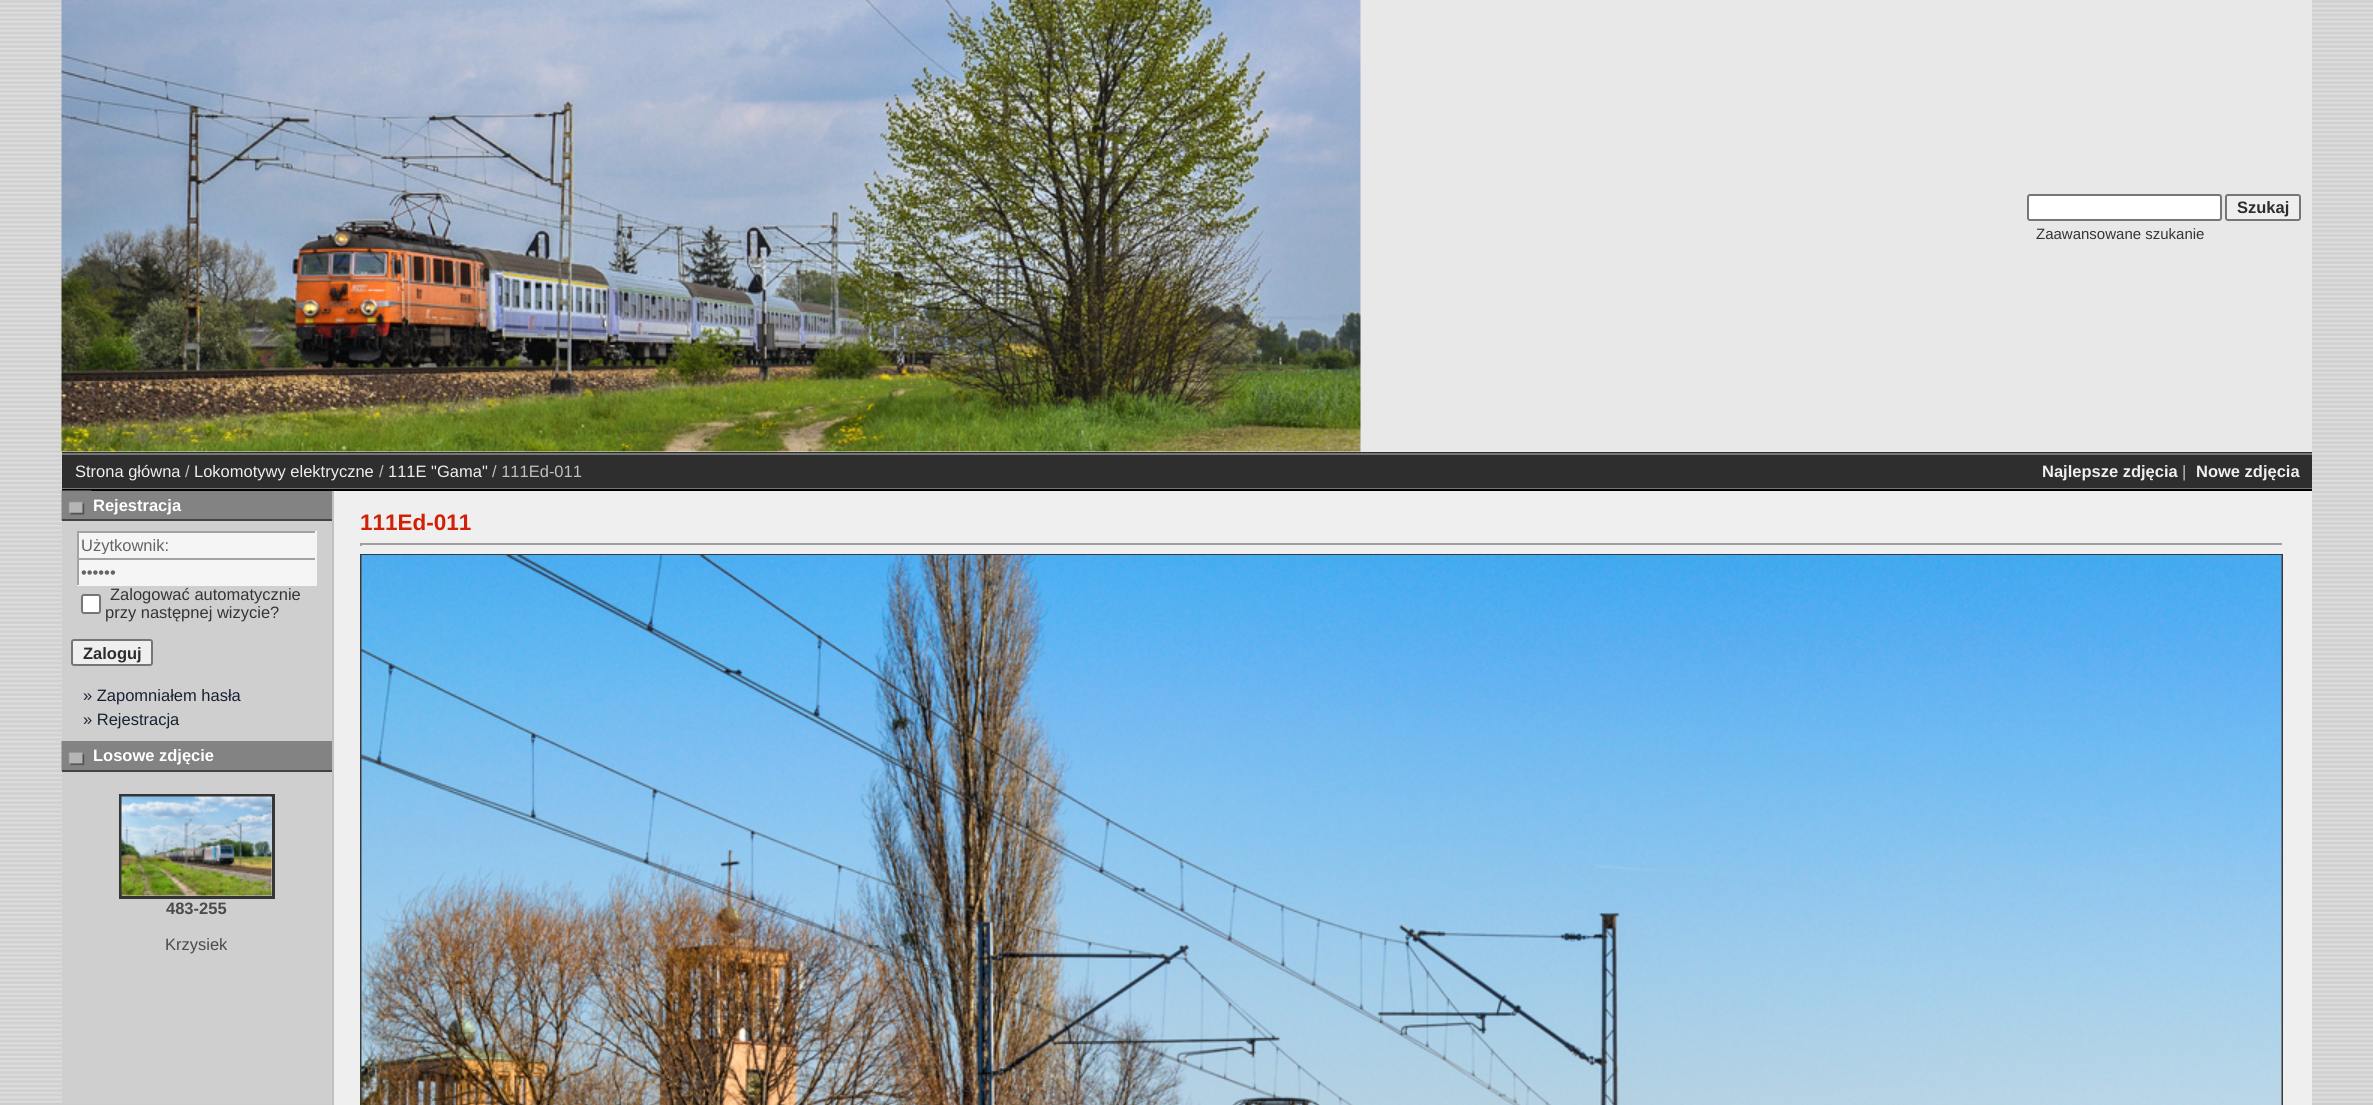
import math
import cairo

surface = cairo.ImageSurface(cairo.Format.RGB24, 2373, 1105)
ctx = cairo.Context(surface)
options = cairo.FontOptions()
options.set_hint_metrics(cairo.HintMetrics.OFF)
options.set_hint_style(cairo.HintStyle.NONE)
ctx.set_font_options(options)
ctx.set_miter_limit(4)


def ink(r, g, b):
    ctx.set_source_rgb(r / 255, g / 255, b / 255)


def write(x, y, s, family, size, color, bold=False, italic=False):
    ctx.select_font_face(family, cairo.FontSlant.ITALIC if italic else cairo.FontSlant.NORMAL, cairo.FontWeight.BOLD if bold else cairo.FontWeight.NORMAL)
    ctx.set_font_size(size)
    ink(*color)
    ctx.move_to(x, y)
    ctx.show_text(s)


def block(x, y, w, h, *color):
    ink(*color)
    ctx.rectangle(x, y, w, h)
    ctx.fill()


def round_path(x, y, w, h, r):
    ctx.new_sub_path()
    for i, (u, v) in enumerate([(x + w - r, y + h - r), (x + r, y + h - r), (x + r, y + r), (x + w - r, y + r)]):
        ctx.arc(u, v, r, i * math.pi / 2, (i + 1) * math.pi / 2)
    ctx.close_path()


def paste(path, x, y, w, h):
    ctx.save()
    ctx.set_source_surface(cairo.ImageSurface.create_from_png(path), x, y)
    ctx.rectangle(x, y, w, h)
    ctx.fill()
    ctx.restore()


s1 = dict(family="Liberation Sans", size=16.5, color=(45, 45, 45), bold=True)
s2 = dict(family="Liberation Sans", size=15, color=(53, 53, 53))
s3 = dict(family="Liberation Sans", size=16.5, color=(239, 239, 239))
s4 = dict(family="Liberation Sans", size=16.5, color=(192, 192, 192))
s5 = dict(family="Liberation Sans", size=16.5, color=(239, 239, 239), bold=True)
s6 = dict(family="Liberation Sans", size=16.5, color=(255, 255, 255), bold=True)
s7 = dict(family="Liberation Sans", size=16.5, color=(100, 100, 100))
s8 = dict(family="Liberation Sans", size=16.5, color=(53, 53, 53))
s9 = dict(family="Liberation Sans", size=16.5, color=(23, 32, 51))
s10 = dict(family="Liberation Sans", size=16.5, color=(75, 75, 75), bold=True)
s11 = dict(family="Liberation Sans", size=16.5, color=(75, 75, 75))
s12 = dict(family="Liberation Sans", size=22.5, color=(210, 32, 6), bold=True)

ink(205, 205, 205)
ctx.paint()
paste("pic1.png", 0, 0, 2373, 1103)
block(62, 0, 2250, 452, 232, 232, 232)
block(62, 452, 2250, 1, 45, 45, 45)
paste("pic2.png", 61, 0, 1300, 452)
ink(255, 255, 255)
round_path(2028, 195, 193, 25, 2)
ctx.fill_preserve()
ink(118, 118, 118)
ctx.stroke()
ink(239, 239, 239)
round_path(2226, 195, 74, 25, 2)
ctx.fill_preserve()
ink(118, 118, 118)
ctx.stroke()
write(2237, 213, "Szukaj", **s1)
write(2036, 239, "Zaawansowane szukanie", **s2)
block(334, 491, 1978, 614, 239, 239, 239)
block(62, 455, 2250, 33, 46, 46, 46)
block(62, 453, 2250, 2, 119, 119, 119)
block(62, 488, 2250, 1, 119, 119, 119)
write(75, 477, "Strona główna", **s3)
write(185, 477, "/", **s4)
write(194, 477, "Lokomotywy elektryczne", **s3)
write(379, 477, "/", **s4)
write(388, 477, "111E \"Gama\"", **s3)
write(492, 477, "/ 111Ed-011", **s4)
write(2042, 477, "Najlepsze zdjęcia", **s5)
write(2182, 477, "|", **s4)
write(2196, 477, "Nowe zdjęcia", **s5)
block(62, 489, 2250, 2, 0, 0, 0)
block(62, 521, 270, 582, 207, 207, 207)
block(91, 491, 241, 28, 131, 131, 131)
paste("pic3.png", 61, 490, 31, 31)
block(62, 519, 270, 2, 67, 67, 67)
write(93, 511, "Rejestracja", **s6)
block(79, 533, 236, 24, 245, 245, 245)
block(77, 531, 240, 2, 163, 163, 163)
block(315, 531, 2, 27, 245, 245, 245)
block(77, 557, 240, 1, 245, 245, 245)
block(77, 531, 2, 27, 163, 163, 163)
ctx.save()
ctx.rectangle(81, 536, 231, 18)
ctx.clip()
write(81, 551, "Użytkownik:", **s7)
ctx.restore()
block(79, 560, 236, 24, 245, 245, 245)
block(77, 558, 240, 2, 163, 163, 163)
block(315, 558, 2, 27, 245, 245, 245)
block(77, 584, 240, 2, 245, 245, 245)
block(77, 558, 2, 27, 163, 163, 163)
write(81, 578, "••••••", **s7)
ink(255, 255, 255)
round_path(82, 595, 18, 18, 2)
ctx.fill_preserve()
ink(118, 118, 118)
ctx.stroke()
write(110, 600, "Zalogować automatycznie", **s8)
write(105, 618, "przy następnej wizycie?", **s8)
ink(239, 239, 239)
round_path(72, 640, 80, 25, 2)
ctx.fill_preserve()
ink(118, 118, 118)
ctx.stroke()
write(83, 659, "Zaloguj", **s1)
write(83, 701, "» Zapomniałem hasła", **s9)
write(83, 725, "» Rejestracja", **s9)
block(85, 741, 247, 29, 131, 131, 131)
paste("pic4.png", 61, 741, 24, 30)
block(62, 770, 270, 2, 67, 67, 67)
write(93, 761, "Losowe zdjęcie", **s6)
ctx.rectangle(120.5, 795.5, 153, 102)
ink(53, 53, 53)
ctx.set_line_width(3)
ctx.stroke()
paste("pic5.png", 121, 796, 151, 100)
write(166, 914, "483-255", **s10)
write(165, 950, "Krzysiek", **s11)
block(332, 491, 2, 614, 192, 192, 192)
write(360, 530, "111Ed-011", **s12)
block(360, 543, 1923, 2, 159, 159, 159)
block(2282, 543, 1, 3, 238, 238, 238)
block(360, 543, 2, 3, 159, 159, 159)
ctx.rectangle(361, 555, 1921, 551)
ink(58, 58, 58)
ctx.set_line_width(2)
ctx.stroke()
paste("pic6.png", 361, 555, 1921, 550)
surface.write_to_png("screenshot.png")
